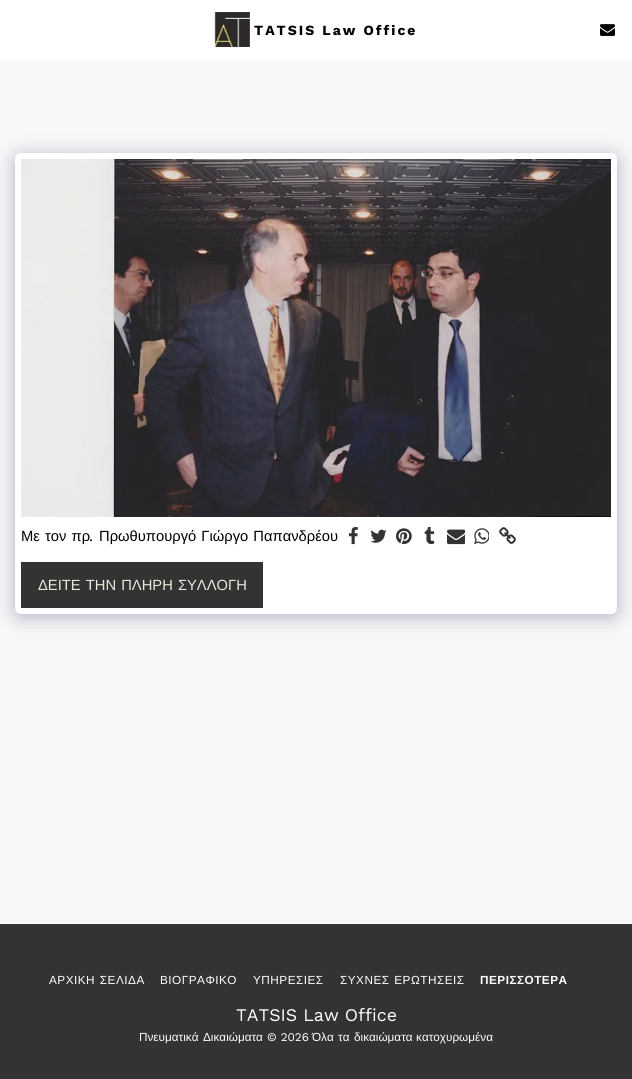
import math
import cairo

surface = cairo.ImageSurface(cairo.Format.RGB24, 632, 1079)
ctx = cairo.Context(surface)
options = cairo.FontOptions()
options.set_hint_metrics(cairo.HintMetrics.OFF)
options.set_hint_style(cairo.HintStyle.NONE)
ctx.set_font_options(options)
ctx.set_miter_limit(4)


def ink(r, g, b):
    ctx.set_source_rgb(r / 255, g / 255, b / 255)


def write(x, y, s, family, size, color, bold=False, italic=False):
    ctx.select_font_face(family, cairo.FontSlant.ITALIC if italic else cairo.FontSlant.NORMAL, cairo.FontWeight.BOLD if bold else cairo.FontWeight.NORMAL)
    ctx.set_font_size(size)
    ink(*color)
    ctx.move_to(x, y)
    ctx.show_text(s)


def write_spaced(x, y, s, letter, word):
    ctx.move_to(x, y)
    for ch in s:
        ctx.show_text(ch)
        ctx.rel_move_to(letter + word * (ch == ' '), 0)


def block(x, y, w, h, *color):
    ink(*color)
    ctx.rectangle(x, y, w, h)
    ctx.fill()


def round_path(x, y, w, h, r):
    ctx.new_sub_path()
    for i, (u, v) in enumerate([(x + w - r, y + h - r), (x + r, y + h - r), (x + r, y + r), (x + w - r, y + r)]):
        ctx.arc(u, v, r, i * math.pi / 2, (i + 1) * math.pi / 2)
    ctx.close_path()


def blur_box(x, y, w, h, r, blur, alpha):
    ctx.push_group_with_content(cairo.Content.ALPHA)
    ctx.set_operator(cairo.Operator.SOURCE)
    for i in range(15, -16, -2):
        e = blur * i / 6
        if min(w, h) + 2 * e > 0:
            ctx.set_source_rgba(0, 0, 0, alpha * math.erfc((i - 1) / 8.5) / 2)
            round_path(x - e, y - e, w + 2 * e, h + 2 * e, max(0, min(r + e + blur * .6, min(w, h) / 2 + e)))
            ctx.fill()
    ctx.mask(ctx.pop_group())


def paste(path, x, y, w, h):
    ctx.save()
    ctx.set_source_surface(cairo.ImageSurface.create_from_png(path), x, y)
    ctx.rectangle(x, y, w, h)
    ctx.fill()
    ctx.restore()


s1 = dict(family="Work Sans", size=14.75, color=(0, 0, 0))
s2 = dict(family="Work Sans", size=17.75, color=(255, 255, 255))
s3 = dict(family="Liberation Sans", size=11.75, color=(255, 255, 255))
s4 = dict(family="Work Sans", size=11.75, color=(255, 255, 255))

ink(255, 255, 255)
ctx.paint()
paste("pic1.png", 214, 12, 36, 35)
ctx.select_font_face("Work Sans", cairo.FontSlant.NORMAL, cairo.FontWeight.BOLD)
ctx.set_font_size(14)
ink(0, 0, 0)
write_spaced(254, 35, "TATSIS Law Office", 2, 0)
paste("pic2.png", 600, 24, 15, 12)
block(0, 60, 632, 863, 247, 249, 248)
ink(77, 63, 122)
blur_box(15, 156, 602, 461, 6, 10, 0.4)
ink(255, 255, 255)
round_path(15, 153, 602, 461, 6)
ctx.fill()
paste("pic3.png", 21, 159, 590, 358)
ctx.select_font_face("Liberation Sans")
ctx.set_font_size(14.75)
ink(0, 0, 0)
write_spaced(21, 541, "Με τον πρ", 0, 1)
write(89, 541, ".", **s1)
ctx.select_font_face("Liberation Sans")
write_spaced(99, 541, "Πρωθυπουργό Γιώργο Παπανδρέου", 0, 1)
paste("pic4.png", 348, 527, 10, 18)
paste("pic5.png", 370, 529, 17, 14)
paste("pic6.png", 396, 528, 16, 17)
paste("pic7.png", 424, 527, 11, 18)
paste("pic8.png", 447, 529, 18, 16)
paste("pic9.png", 474, 528, 15, 16)
paste("pic10.png", 499, 527, 17, 17)
block(21, 562, 242, 46, 51, 51, 51)
ink(228, 237, 219)
write_spaced(38, 590, "ΔΕΙΤΕ ΤΗΝ ΠΛΗΡΗ ΣΥΛΛΟΓΗ", 0, 1)
block(0, 924, 632, 155, 51, 51, 51)
ctx.set_font_size(11.75)
ink(255, 255, 255)
write_spaced(49, 984, "ΑΡΧΙΚΗ ΣΕΛΙΔΑ", 0.5, 1)
write_spaced(160, 984, "ΒΙΟΓΡΑΦΙΚΟ", 0.5, 0)
write_spaced(253, 984, "ΥΠΗΡΕΣΙΕΣ", 0.5, 0)
write_spaced(340, 984, "ΣΥΧΝΕΣ ΕΡΩΤΗΣΕΙΣ", 0.5, 1)
ctx.select_font_face("Liberation Sans", cairo.FontSlant.NORMAL, cairo.FontWeight.BOLD)
write_spaced(480, 984, "ΠΕΡΙΣΣΟΤΕΡΑ", 0.5, 0)
write(236, 1021, "TATSIS Law Office", **s2)
write(139, 1041, "Πνευματικά", **s3)
write(203, 1041, "Δικαιώματα", **s3)
write(267, 1041, "© 2026", **s4)
write(312, 1041, "Όλα", **s3)
write(338, 1041, "τα", **s3)
write(354, 1041, "δικαιώματα", **s3)
write(416, 1041, "κατοχυρωμένα", **s3)
surface.write_to_png("screenshot.png")
